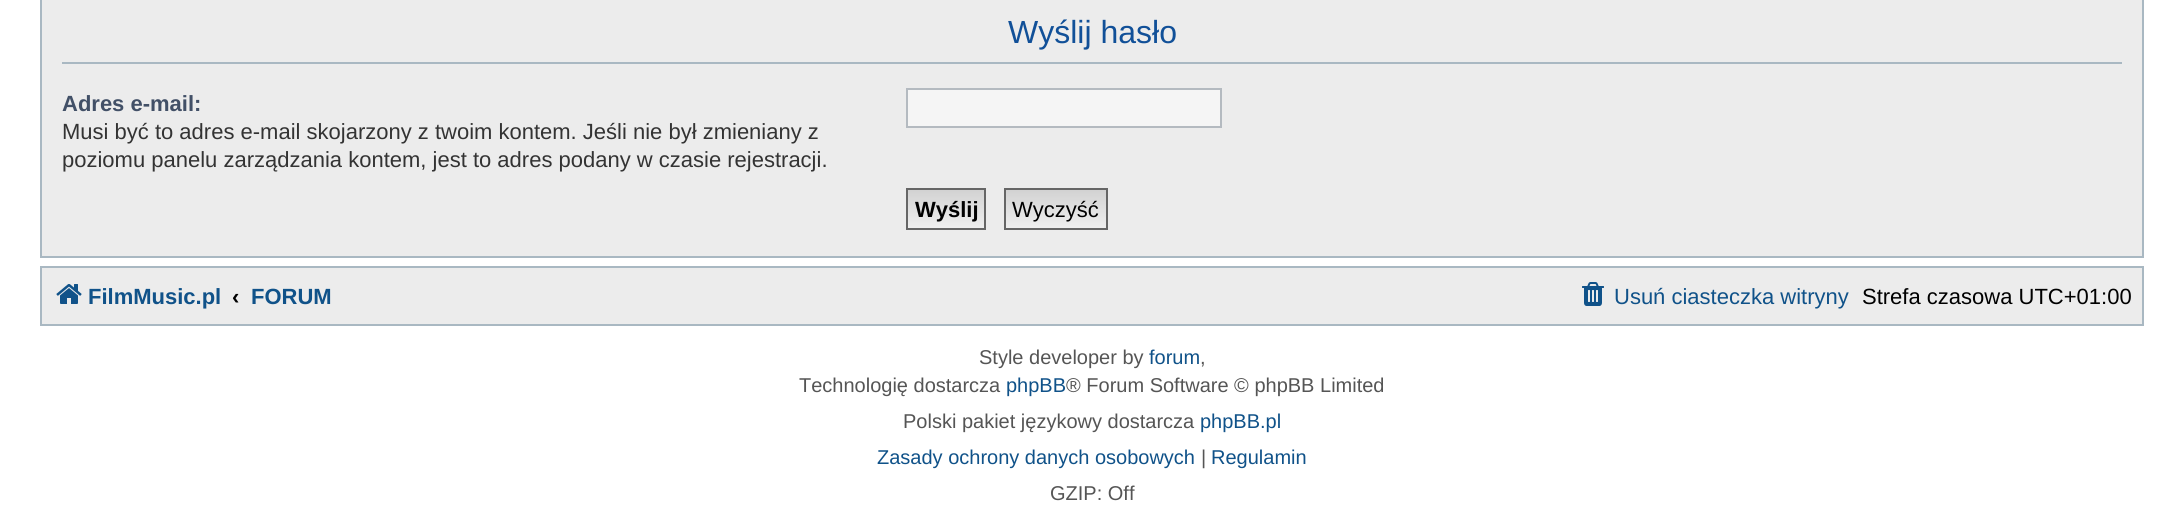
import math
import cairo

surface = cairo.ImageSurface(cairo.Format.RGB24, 2184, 532)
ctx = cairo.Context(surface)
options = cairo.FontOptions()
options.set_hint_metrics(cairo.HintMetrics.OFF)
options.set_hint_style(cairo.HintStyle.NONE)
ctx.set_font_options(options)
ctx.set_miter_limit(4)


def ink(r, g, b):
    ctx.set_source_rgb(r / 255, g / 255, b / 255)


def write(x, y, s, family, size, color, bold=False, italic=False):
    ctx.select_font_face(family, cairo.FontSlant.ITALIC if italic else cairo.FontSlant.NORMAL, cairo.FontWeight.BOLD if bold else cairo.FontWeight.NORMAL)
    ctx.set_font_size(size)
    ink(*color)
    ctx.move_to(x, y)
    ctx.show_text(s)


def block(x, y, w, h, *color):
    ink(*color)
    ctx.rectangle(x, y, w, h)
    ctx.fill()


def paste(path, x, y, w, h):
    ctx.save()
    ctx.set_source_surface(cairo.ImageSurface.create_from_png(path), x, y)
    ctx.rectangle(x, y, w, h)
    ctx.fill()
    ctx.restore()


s1 = dict(family="Liberation Sans", size=32, color=(17, 80, 152))
s2 = dict(family="Liberation Sans", size=22, color=(66, 80, 103), bold=True)
s3 = dict(family="Liberation Sans", size=22, color=(51, 51, 51))
s4 = dict(family="Liberation Sans", size=22, color=(0, 0, 0), bold=True)
s5 = dict(family="Liberation Sans", size=22, color=(0, 0, 0))
s6 = dict(family="Liberation Sans", size=22, color=(16, 82, 137), bold=True)
s7 = dict(family="Liberation Sans", size=22, color=(16, 82, 137))
s8 = dict(family="Liberation Sans", size=20, color=(85, 85, 85))
s9 = dict(family="Liberation Sans", size=20, color=(16, 82, 137))

ink(255, 255, 255)
ctx.paint()
ink(236, 236, 236)
ctx.rectangle(41, -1, 2102, 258)
ctx.fill_preserve()
ink(169, 184, 194)
ctx.stroke()
block(62, 62, 2060, 2, 169, 184, 194)
write(1008, 43, "Wyślij hasło", **s1)
write(62, 111, "Adres e-mail:", **s2)
write(62, 139, "Musi być to adres e-mail skojarzony z twoim kontem. Jeśli nie był zmieniany z", **s3)
write(62, 167, "poziomu panelu zarządzania kontem, jest to adres podany w czasie rejestracji.", **s3)
ink(245, 245, 245)
ctx.rectangle(907, 89, 314, 38)
ctx.fill_preserve()
ink(180, 186, 192)
ctx.stroke()
gradient = cairo.LinearGradient(946, 190, 946, 228)
gradient.add_color_stop_rgba(0, 0.824, 0.824, 0.824, 1)
gradient.add_color_stop_rgba(1, 0.937, 0.937, 0.937, 1)
ctx.set_source(gradient)
ctx.rectangle(908, 190, 76, 38)
ctx.fill()
ctx.rectangle(907, 189, 78, 40)
ink(102, 102, 102)
ctx.stroke()
write(915, 217, "Wyślij", **s4)
gradient = cairo.LinearGradient(1056, 190, 1056, 228)
gradient.add_color_stop_rgba(0, 0.824, 0.824, 0.824, 1)
gradient.add_color_stop_rgba(1, 0.937, 0.937, 0.937, 1)
ctx.set_source(gradient)
ctx.rectangle(1006, 190, 100, 38)
ctx.fill()
ctx.rectangle(1005, 189, 102, 40)
ink(102, 102, 102)
ctx.stroke()
write(1012, 217, "Wyczyść", **s5)
ink(236, 236, 236)
ctx.rectangle(41, 267, 2102, 58)
ctx.fill_preserve()
ink(169, 184, 194)
ctx.stroke()
paste("pic1.png", 56, 284, 26, 20)
write(88, 304, "FilmMusic.pl", **s6)
write(232, 304, "‹", **s4)
write(251, 304, "FORUM", **s6)
paste("pic2.png", 1582, 282, 22, 24)
write(1614, 304, "Usuń ciasteczka witryny", **s7)
write(1862, 304, "Strefa czasowa UTC+01:00", **s5)
write(979, 364, "Style developer by", **s8)
write(1149, 364, "forum", **s9)
write(1200, 364, ",", **s8)
write(799, 392, "Technologię dostarcza", **s8)
write(1006, 392, "phpBB", **s9)
write(1066, 392, "® Forum Software © phpBB Limited", **s8)
write(903, 428, "Polski pakiet językowy dostarcza", **s8)
write(1200, 428, "phpBB.pl", **s9)
write(877, 464, "Zasady ochrony danych osobowych", **s9)
write(1201, 464, "|", **s8)
write(1211, 464, "Regulamin", **s9)
write(1050, 500, "GZIP: Off", **s8)
surface.write_to_png("screenshot.png")
